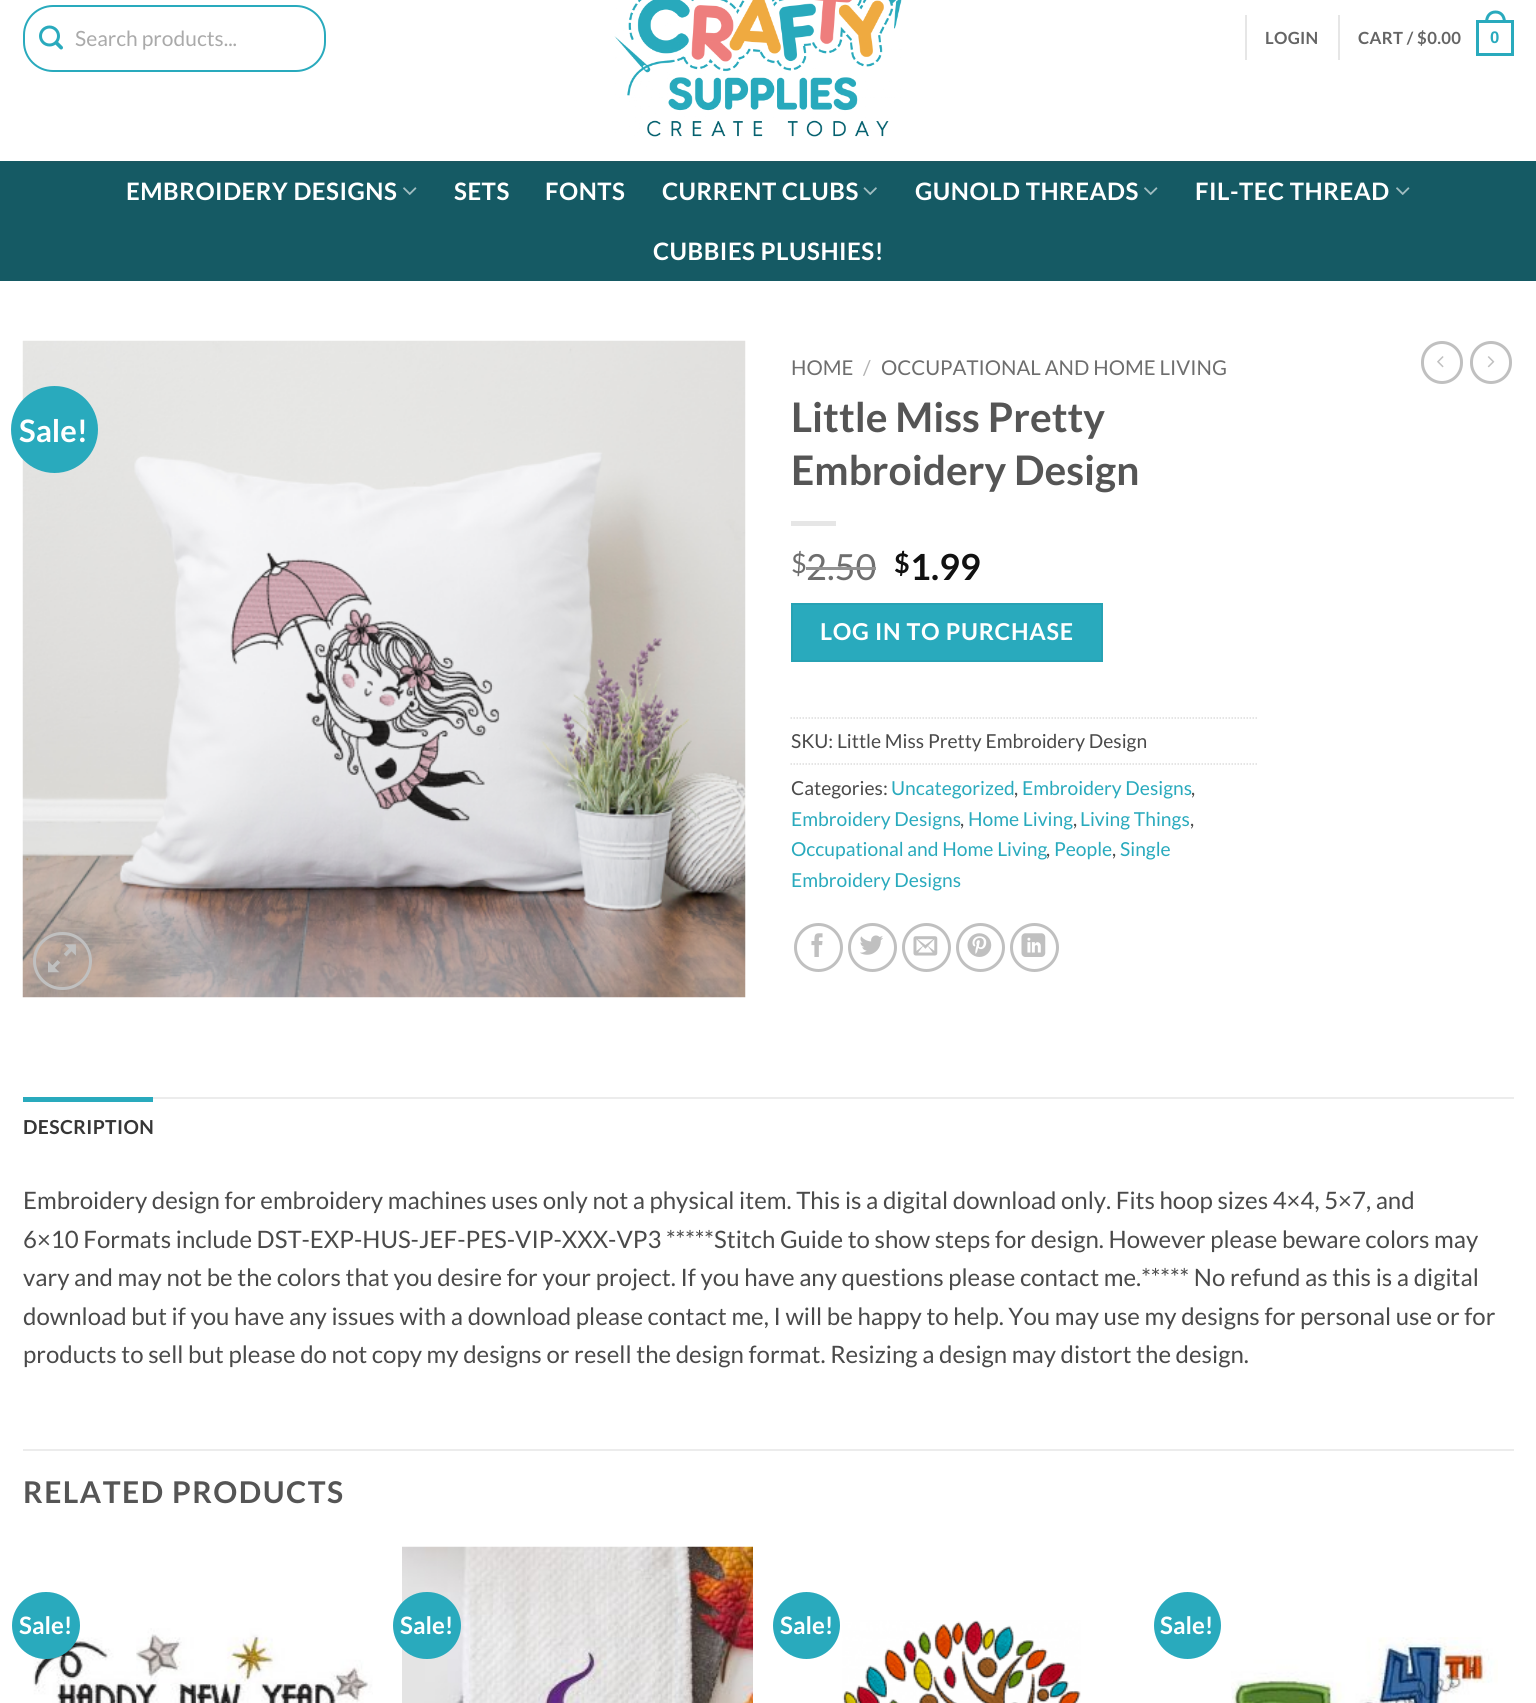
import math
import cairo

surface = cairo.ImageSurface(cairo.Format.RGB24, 1536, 1703)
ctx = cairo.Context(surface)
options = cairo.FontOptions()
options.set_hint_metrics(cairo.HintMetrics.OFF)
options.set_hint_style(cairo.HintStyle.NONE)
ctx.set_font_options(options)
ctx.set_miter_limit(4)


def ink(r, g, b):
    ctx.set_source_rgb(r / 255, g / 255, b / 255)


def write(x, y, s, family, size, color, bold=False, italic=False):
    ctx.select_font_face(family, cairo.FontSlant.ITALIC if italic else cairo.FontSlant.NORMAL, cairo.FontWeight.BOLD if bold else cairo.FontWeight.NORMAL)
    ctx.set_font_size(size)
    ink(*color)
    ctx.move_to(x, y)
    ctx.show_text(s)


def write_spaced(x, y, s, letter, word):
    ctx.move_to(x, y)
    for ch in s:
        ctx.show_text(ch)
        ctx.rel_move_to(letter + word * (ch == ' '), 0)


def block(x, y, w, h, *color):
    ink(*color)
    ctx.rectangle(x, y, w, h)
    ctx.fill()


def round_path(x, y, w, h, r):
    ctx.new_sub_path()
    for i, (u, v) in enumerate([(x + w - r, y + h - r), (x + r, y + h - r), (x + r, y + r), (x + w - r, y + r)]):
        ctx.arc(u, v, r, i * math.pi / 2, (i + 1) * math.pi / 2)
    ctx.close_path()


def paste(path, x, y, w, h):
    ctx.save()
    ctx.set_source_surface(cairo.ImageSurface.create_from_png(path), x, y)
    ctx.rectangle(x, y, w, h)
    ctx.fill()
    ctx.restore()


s1 = dict(family="Lato", size=21, color=(170, 170, 170))
s2 = dict(family="Lato", size=31, color=(255, 255, 255), bold=True)
s3 = dict(family="Lato", size=20.4, color=(110, 110, 110))
s4 = dict(family="Lato", size=20.4, color=(178, 178, 178))
s5 = dict(family="Lato", size=40.75, color=(85, 85, 85), bold=True)
s6 = dict(family="Lato", size=27, color=(110, 110, 110))
s7 = dict(family="Lato", size=36, color=(110, 110, 110))
s8 = dict(family="Lato", size=27, color=(17, 17, 17), bold=True)
s9 = dict(family="Lato", size=36, color=(17, 17, 17), bold=True)
s10 = dict(family="Lato", size=19.25, color=(74, 74, 74))
s11 = dict(family="Lato", size=19.25, color=(41, 170, 189))
s12 = dict(family="Lato", size=24, color=(74, 74, 74))
s13 = dict(family="Lato", size=24, color=(255, 255, 255), bold=True)

ink(255, 255, 255)
ctx.paint()
round_path(24, 6, 301, 65, 29)
ink(41, 170, 189)
ctx.stroke()
paste("pic1.png", 39, 25, 24, 25)
write(75, 46, "Search products...", **s1)
paste("pic2.png", 614, 0, 288, 137)
block(1245, 15, 2, 45, 230, 230, 230)
ctx.select_font_face("Lato", cairo.FontSlant.NORMAL, cairo.FontWeight.BOLD)
ctx.set_font_size(16.75)
ink(101, 101, 101)
write_spaced(1265, 44, "LOGIN", 0.3, 0)
block(1338, 15, 2, 45, 230, 230, 230)
ink(101, 101, 101)
write_spaced(1358, 44, "CART / $0.00", 0.3, 0)
ctx.rectangle(1477.5, 21.5, 35, 33)
ink(41, 170, 189)
ctx.set_line_width(3)
ctx.stroke()
ctx.set_fill_rule(cairo.FillRule.EVEN_ODD)
ctx.new_path()
ctx.move_to(1495.5, 10.5)
ctx.curve_to(1502.5, 10.5, 1506, 16, 1506, 22.5)
ctx.line_to(1485, 22.5)
ctx.curve_to(1485, 16, 1488.5, 10.5, 1495.5, 10.5)
ctx.close_path()
ctx.move_to(1495.5, 13.5)
ctx.curve_to(1501, 13.5, 1503, 18, 1503, 22.5)
ctx.line_to(1488, 22.5)
ctx.curve_to(1488, 18, 1490, 13.5, 1495.5, 13.5)
ctx.close_path()
ctx.fill()
ctx.select_font_face("Liberation Sans", cairo.FontSlant.NORMAL, cairo.FontWeight.BOLD)
write_spaced(1490, 43, "0", 0.3, 0)
block(0, 161, 1536, 120, 21, 90, 100)
block(23, 161, 1491, 2, 26, 88, 97)
ctx.select_font_face("Lato", cairo.FontSlant.NORMAL, cairo.FontWeight.BOLD)
ctx.set_font_size(24)
ink(255, 255, 255)
write_spaced(126, 200, "EMBROIDERY DESIGNS", 0.5, 0)
paste("pic3.png", 403, 187, 14, 8)
write_spaced(454, 200, "SETS", 0.5, 0)
write_spaced(545, 200, "FONTS", 0.5, 0)
write_spaced(662, 200, "CURRENT CLUBS", 0.5, 0)
paste("pic4.png", 863, 187, 14, 8)
write_spaced(915, 200, "GUNOLD THREADS", 0.5, 0)
paste("pic3.png", 1144, 187, 14, 8)
write_spaced(1195, 200, "FIL-TEC THREAD", 0.5, 0)
paste("pic3.png", 1396, 187, 14, 8)
write_spaced(653, 260, "CUBBIES PLUSHIES!", 0.5, 0)
paste("pic5.png", 22, 340, 724, 658)
ink(41, 170, 189)
ctx.arc(54.5, 429.5, 43.5, 0, 2 * math.pi)
ctx.fill()
write(19, 442, "Sale!", **s2)
round_path(34.5, 933.5, 56, 55, 27.5)
ink(192, 192, 192)
ctx.stroke()
paste("pic6.png", 48, 944, 28, 29)
write(791, 375, "HOME", **s3)
write(863, 375, "/", **s4)
write(881, 375, "OCCUPATIONAL AND HOME LIVING", **s3)
write(791, 432, "Little Miss Pretty", **s5)
write(791, 485, "Embroidery Design", **s5)
block(791, 521, 45, 5, 230, 230, 230)
write(791, 573, "$", **s6)
write(806, 580, "2.50", **s7)
block(806, 567, 70, 3, 146, 146, 146)
write(894, 573, "$", **s8)
write(910, 580, "1.99", **s9)
ink(41, 170, 189)
ctx.rectangle(792, 604, 310, 57)
ctx.fill_preserve()
ink(39, 162, 180)
ctx.set_line_width(2)
ctx.stroke()
ctx.set_font_size(23.25)
ink(255, 255, 255)
write_spaced(820, 640, "LOG IN TO PURCHASE", 0.75, 0)
ctx.new_path()
ctx.move_to(790.5, 718)
ctx.line_to(1257, 718)
ink(221, 221, 221)
ctx.set_line_width(1.5)
ctx.set_dash([1.5, 1.5])
ctx.stroke()
write(791, 748, "SKU: Little Miss Pretty Embroidery Design", **s10)
ctx.new_path()
ctx.move_to(790.5, 764)
ctx.line_to(1257, 764)
ink(221, 221, 221)
ctx.stroke()
write(791, 795, "Categories:", **s10)
write(891, 795, "Uncategorized", **s11)
write(1014, 795, ",", **s10)
write(1022, 795, "Embroidery Designs", **s11)
write(1191, 795, ",", **s10)
write(791, 826, "Embroidery Designs", **s11)
write(960, 826, ",", **s10)
write(968, 826, "Home Living", **s11)
write(1073, 826, ",", **s10)
write(1080, 826, "Living Things", **s11)
write(1190, 826, ",", **s10)
write(791, 856, "Occupational and Home Living", **s11)
write(1046, 856, ",", **s10)
write(1054, 856, "People", **s11)
write(1112, 856, ",", **s10)
write(1120, 856, "Single", **s11)
write(791, 887, "Embroidery Designs", **s11)
ctx.new_path()
ctx.arc(818.5, 947.5, 23, 0, 2 * math.pi)
ink(192, 192, 192)
ctx.set_line_width(3)
ctx.set_dash([])
ctx.stroke()
paste("pic7.png", 811, 933, 12, 24)
ctx.arc(872.5, 947.5, 23, 0, 2 * math.pi)
ctx.stroke()
paste("pic8.png", 860, 935, 23, 20)
ctx.arc(926.5, 947.5, 23, 0, 2 * math.pi)
ctx.stroke()
paste("pic9.png", 913, 936, 25, 20)
ctx.arc(980.5, 947.5, 23, 0, 2 * math.pi)
ctx.stroke()
paste("pic10.png", 967, 933, 25, 24)
ctx.arc(1034.5, 947.5, 23, 0, 2 * math.pi)
ctx.stroke()
paste("pic11.png", 1021, 933, 25, 24)
round_path(1422.5, 342.5, 39, 40, 19.5)
ctx.stroke()
paste("pic12.png", 1437, 356, 7, 12)
round_path(1471.5, 342.5, 39, 40, 19.5)
ctx.stroke()
paste("pic13.png", 1487, 356, 8, 12)
block(153, 1097, 1361, 2, 236, 236, 236)
block(23, 1097, 130, 5, 41, 170, 189)
ctx.select_font_face("Lato", cairo.FontSlant.NORMAL, cairo.FontWeight.BOLD)
ink(54, 54, 54)
write_spaced(23, 1134, "DESCRIPTION", 0.4, 0)
write(23, 1209, "Embroidery design for embroidery machines uses only not a physical item. This is a digital download only. Fits hoop sizes 4×4, 5×7, and", **s12)
write(23, 1248, "6×10 Formats include DST-EXP-HUS-JEF-PES-VIP-XXX-VP3 *****Stitch Guide to show steps for design. However please beware colors may", **s12)
write(23, 1286, "vary and may not be the colors that you desire for your project. If you have any questions please contact me.***** No refund as this is a digital", **s12)
write(23, 1325, "download but if you have any issues with a download please contact me, I will be happy to help. You may use my designs for personal use or for", **s12)
write(23, 1363, "products to sell but please do not copy my designs or resell the design format. Resizing a design may distort the design.", **s12)
block(23, 1449, 1491, 2, 236, 236, 236)
ctx.select_font_face("Lato", cairo.FontSlant.NORMAL, cairo.FontWeight.BOLD)
ctx.set_font_size(30)
ink(85, 85, 85)
write_spaced(23, 1503, "RELATED PRODUCTS", 1.5, 0)
paste("pic14.png", 33, 1628, 340, 75)
ink(41, 170, 189)
round_path(12, 1592, 68, 67, 33.5)
ctx.fill()
write(19, 1634, "Sale!", **s13)
paste("pic15.png", 402, 1546, 351, 157)
ink(41, 170, 189)
round_path(393, 1592, 68, 67, 33.5)
ctx.fill()
write(400, 1634, "Sale!", **s13)
ink(41, 170, 189)
ctx.new_path()
ctx.arc(806.5, 1625.5, 33.5, 0, 2 * math.pi)
ctx.fill()
write(780, 1634, "Sale!", **s13)
paste("pic16.png", 842, 1620, 239, 83)
ink(41, 170, 189)
ctx.arc(1187.5, 1625.5, 33.5, 0, 2 * math.pi)
ctx.fill()
write(1160, 1634, "Sale!", **s13)
paste("pic17.png", 1231, 1637, 267, 66)
surface.write_to_png("screenshot.png")
